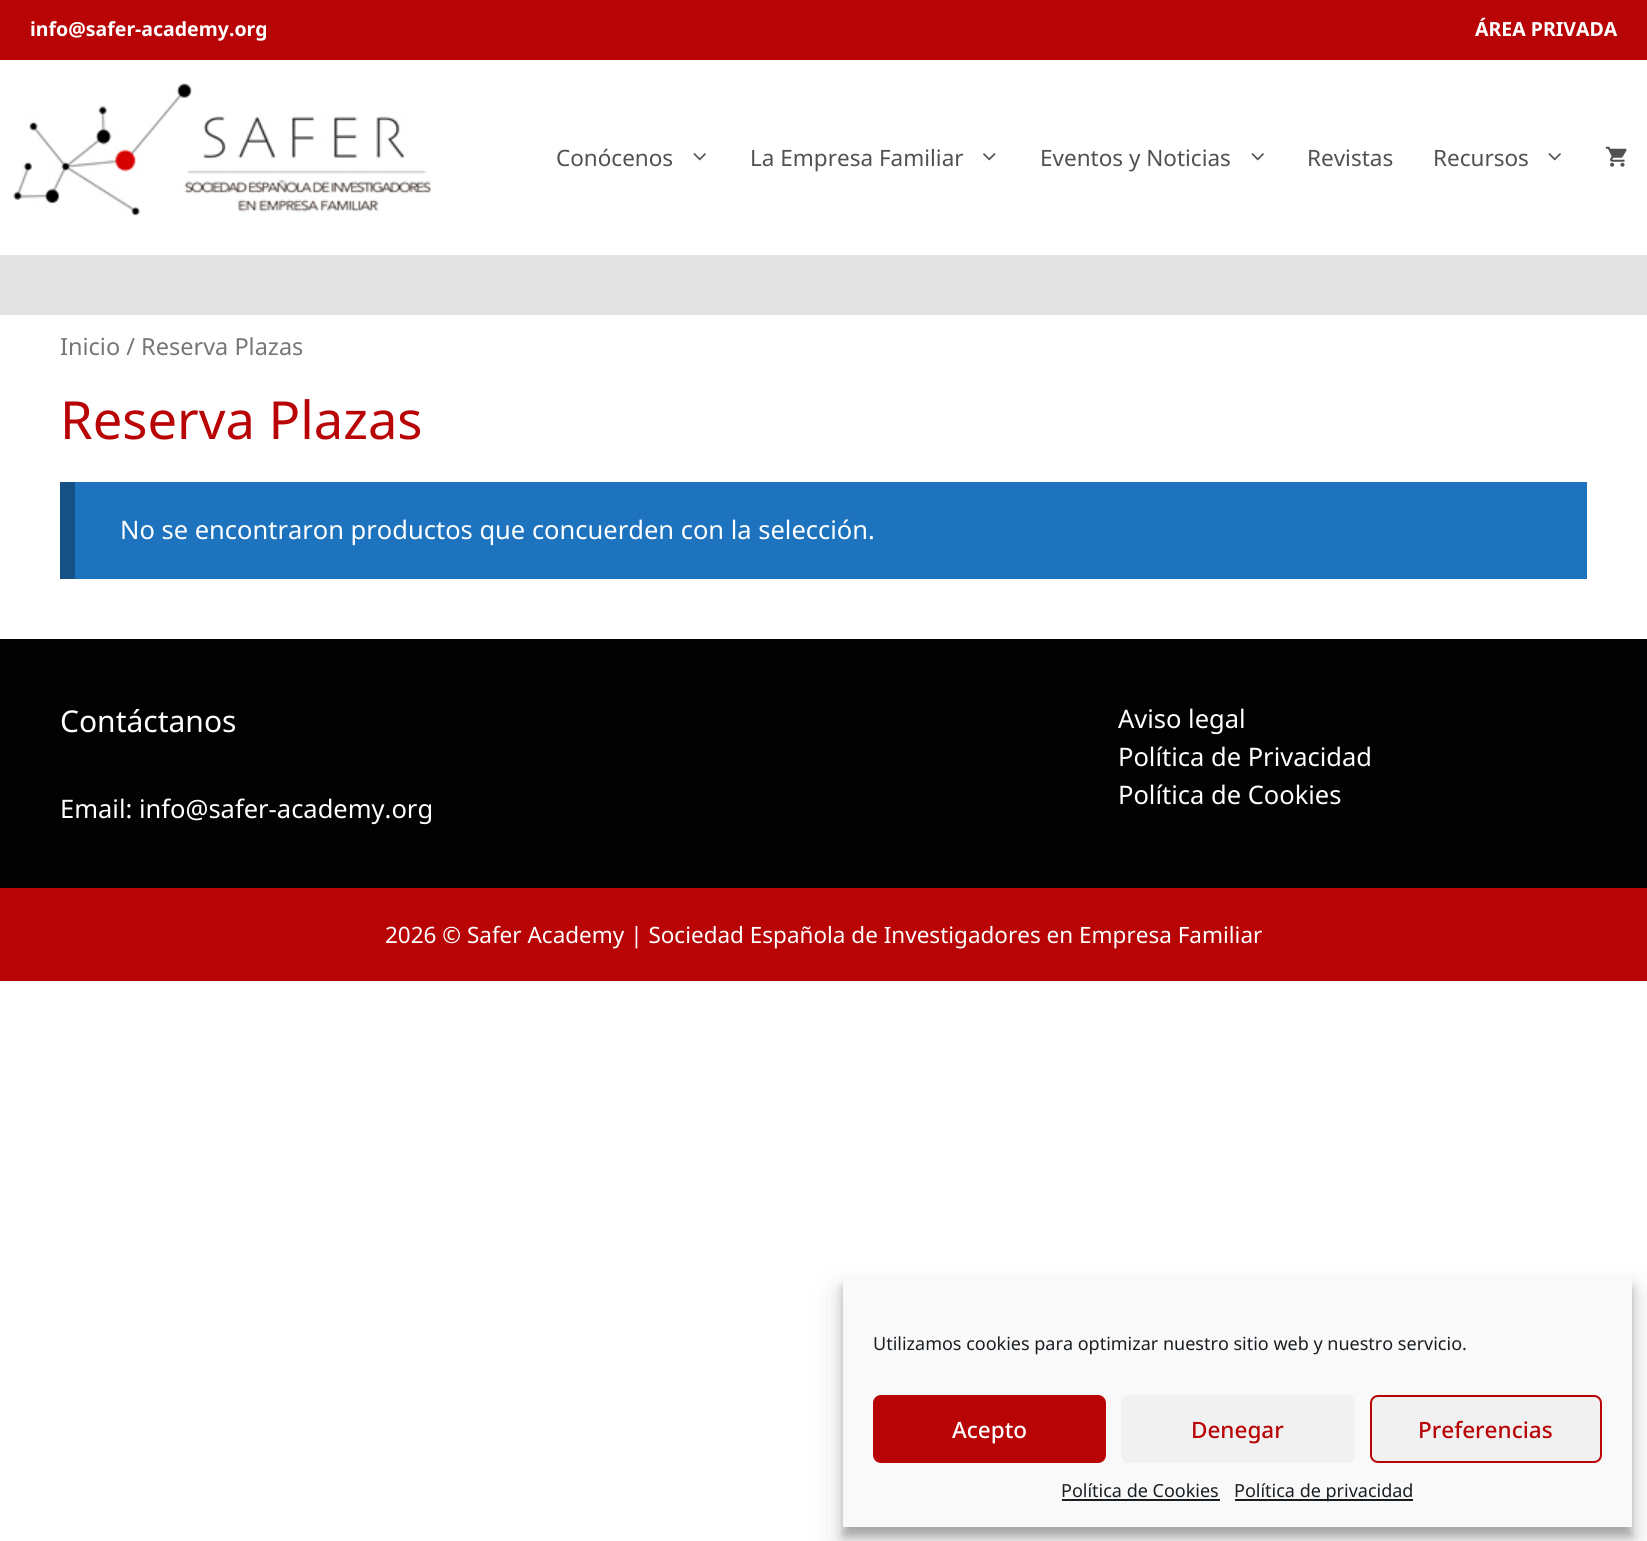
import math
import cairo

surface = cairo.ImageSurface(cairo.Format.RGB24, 1647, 1541)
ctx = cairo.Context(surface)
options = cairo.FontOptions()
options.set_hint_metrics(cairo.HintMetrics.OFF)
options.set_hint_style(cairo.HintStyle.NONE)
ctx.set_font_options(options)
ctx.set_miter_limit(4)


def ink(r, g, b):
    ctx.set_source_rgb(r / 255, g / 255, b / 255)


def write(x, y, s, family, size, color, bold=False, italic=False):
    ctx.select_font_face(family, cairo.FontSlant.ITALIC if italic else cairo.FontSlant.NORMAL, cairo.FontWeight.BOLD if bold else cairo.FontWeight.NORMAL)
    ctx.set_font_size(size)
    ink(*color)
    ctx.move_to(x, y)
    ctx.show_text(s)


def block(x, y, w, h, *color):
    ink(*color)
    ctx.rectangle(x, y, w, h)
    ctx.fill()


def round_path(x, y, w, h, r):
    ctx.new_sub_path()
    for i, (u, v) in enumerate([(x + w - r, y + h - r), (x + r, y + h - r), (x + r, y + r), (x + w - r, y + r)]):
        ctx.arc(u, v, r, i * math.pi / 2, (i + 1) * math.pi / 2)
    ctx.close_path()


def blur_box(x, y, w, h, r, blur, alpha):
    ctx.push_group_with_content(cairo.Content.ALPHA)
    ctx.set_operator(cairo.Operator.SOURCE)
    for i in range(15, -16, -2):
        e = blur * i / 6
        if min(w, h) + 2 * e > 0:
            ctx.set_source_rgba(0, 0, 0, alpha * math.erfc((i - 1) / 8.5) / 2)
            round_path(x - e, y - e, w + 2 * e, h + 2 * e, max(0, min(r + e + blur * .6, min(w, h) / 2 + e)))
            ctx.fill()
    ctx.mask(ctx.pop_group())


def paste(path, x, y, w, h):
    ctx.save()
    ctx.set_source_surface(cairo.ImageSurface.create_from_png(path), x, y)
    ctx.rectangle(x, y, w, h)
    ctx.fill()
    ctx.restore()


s1 = dict(family="Noto Sans", size=19.5, color=(255, 255, 255), bold=True)
s2 = dict(family="Noto Sans", size=22.5, color=(81, 81, 81))
s3 = dict(family="Noto Sans", size=23.5, color=(118, 118, 118))
s4 = dict(family="Noto Sans", size=52.5, color=(184, 4, 5))
s5 = dict(family="Noto Sans", size=25.5, color=(255, 255, 255))
s6 = dict(family="Noto Sans", size=30, color=(255, 255, 255))
s7 = dict(family="Noto Sans", size=22.5, color=(255, 255, 255))
s8 = dict(family="Noto Sans", size=18, color=(25, 30, 35))
s9 = dict(family="Noto Sans Medium", size=22.5, color=(255, 255, 255))
s10 = dict(family="Noto Sans Medium", size=22.5, color=(184, 4, 5))

ink(255, 255, 255)
ctx.paint()
block(0, 0, 1647, 60, 184, 4, 5)
write(30, 36, "info@safer-academy.org", **s1)
write(1475, 36, "ÁREA PRIVADA", **s1)
block(0, 255, 1647, 60, 228, 228, 228)
paste("pic1.png", 13, 83, 418, 134)
write(556, 166, "Conócenos", **s2)
paste("pic2.png", 693, 153, 13, 8)
write(750, 166, "La Empresa Familiar", **s2)
paste("pic3.png", 983, 153, 13, 8)
write(1040, 166, "Eventos y Noticias", **s2)
paste("pic2.png", 1251, 153, 13, 8)
write(1307, 166, "Revistas", **s2)
write(1433, 166, "Recursos", **s2)
paste("pic2.png", 1548, 153, 13, 8)
paste("pic4.png", 1605, 146, 22, 21)
write(60, 355, "Inicio / Reserva Plazas", **s3)
write(60, 439, "Reserva Plazas", **s4)
block(75, 482, 1512, 97, 30, 115, 190)
block(60, 482, 15, 97, 21, 81, 133)
write(120, 539, "No se encontraron productos que concuerden con la selección.", **s5)
block(0, 639, 1647, 249, 2, 2, 2)
write(60, 732, "Contáctanos", **s6)
write(60, 818, "Email: info@safer-academy.org", **s5)
write(1118, 728, "Aviso legal", **s5)
write(1118, 766, "Política de Privacidad", **s5)
write(1118, 804, "Política de Cookies", **s5)
block(0, 888, 1647, 93, 184, 4, 5)
write(385, 943, "2026 © Safer Academy | Sociedad Española de Investigadores en Empresa Familiar", **s7)
ink(0, 0, 0)
blur_box(843, 1287, 789, 249, 0, 4.5, 0.23)
blur_box(843, 1293, 789, 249, 0, 15, 0.19)
block(843, 1278, 789, 249, 249, 249, 249)
write(873, 1350, "Utilizamos cookies para optimizar nuestro sitio web y nuestro servicio.", **s8)
ink(184, 4, 5)
round_path(874, 1396, 231, 66, 7)
ctx.fill_preserve()
ctx.stroke()
write(952, 1438, "Acepto", **s9)
ink(241, 241, 241)
round_path(1121, 1395, 234, 68, 8)
ctx.fill()
write(1191, 1438, "Denegar", **s10)
ink(241, 241, 241)
round_path(1371, 1396, 230, 66, 7)
ctx.fill_preserve()
ink(184, 4, 5)
ctx.stroke()
write(1418, 1438, "Preferencias", **s10)
write(1061, 1497, "Política de Cookies", **s8)
block(1062, 1499, 158, 2, 25, 30, 35)
block(1235, 1499, 178, 2, 25, 30, 35)
write(1234, 1497, "Política de privacidad", **s8)
surface.write_to_png("screenshot.png")
